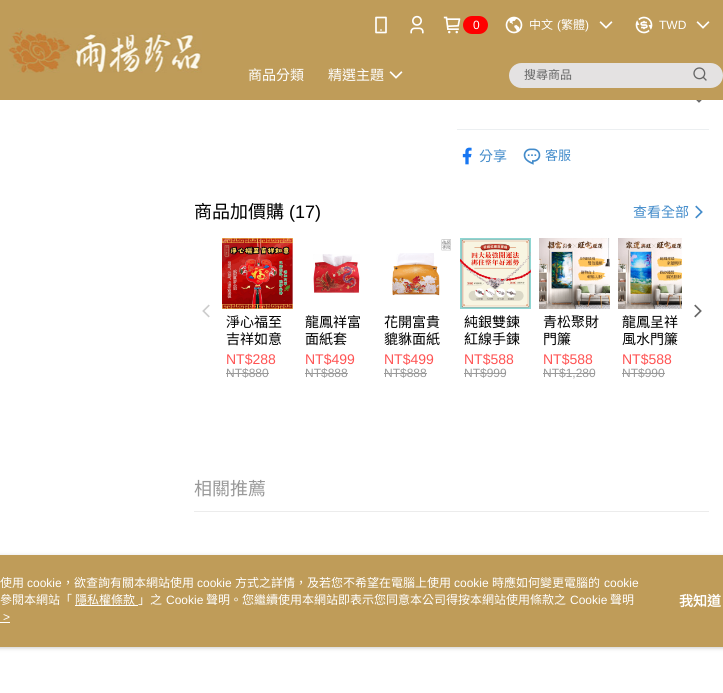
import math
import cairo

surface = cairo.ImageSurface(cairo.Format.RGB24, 723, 693)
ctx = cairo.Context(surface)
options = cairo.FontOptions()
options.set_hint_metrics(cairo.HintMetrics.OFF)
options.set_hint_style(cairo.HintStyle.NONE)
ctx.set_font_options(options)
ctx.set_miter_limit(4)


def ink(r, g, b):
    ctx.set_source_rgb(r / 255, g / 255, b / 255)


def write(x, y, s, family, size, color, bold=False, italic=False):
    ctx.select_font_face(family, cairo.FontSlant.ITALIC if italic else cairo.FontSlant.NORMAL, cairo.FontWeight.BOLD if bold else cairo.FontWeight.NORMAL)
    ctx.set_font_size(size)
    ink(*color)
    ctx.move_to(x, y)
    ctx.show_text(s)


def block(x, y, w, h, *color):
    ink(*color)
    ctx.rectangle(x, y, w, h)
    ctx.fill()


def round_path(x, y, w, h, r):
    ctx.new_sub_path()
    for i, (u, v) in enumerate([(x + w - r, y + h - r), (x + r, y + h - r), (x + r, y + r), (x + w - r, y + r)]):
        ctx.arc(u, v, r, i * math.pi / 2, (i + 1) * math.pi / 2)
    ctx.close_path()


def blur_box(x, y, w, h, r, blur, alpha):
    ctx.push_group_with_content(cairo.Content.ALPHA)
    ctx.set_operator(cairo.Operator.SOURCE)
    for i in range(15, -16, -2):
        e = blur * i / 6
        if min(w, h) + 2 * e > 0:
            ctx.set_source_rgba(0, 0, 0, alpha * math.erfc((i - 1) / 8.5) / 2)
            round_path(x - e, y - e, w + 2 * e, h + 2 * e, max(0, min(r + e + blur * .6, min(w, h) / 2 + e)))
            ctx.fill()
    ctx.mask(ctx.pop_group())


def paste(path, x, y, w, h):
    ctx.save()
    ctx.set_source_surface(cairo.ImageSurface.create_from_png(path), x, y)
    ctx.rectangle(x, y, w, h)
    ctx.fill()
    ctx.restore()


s1 = dict(family="Liberation Sans", size=12, color=(255, 255, 255))
s2 = dict(family="Noto Sans CJK TC", size=12, color=(255, 255, 255))
s3 = dict(family="Noto Sans CJK TC", size=14, color=(255, 255, 255))
s4 = dict(family="Noto Sans CJK TC", size=12, color=(102, 102, 102))
s5 = dict(family="Noto Sans CJK TC", size=14, color=(66, 139, 202))
s6 = dict(family="Noto Sans CJK TC", size=13, color=(66, 139, 202))
s7 = dict(family="Noto Sans CJK TC", size=18, color=(0, 0, 0))
s8 = dict(family="Liberation Sans", size=18, color=(0, 0, 0))
s9 = dict(family="Noto Sans CJK TC", size=14, color=(0, 0, 0))
s10 = dict(family="Liberation Sans", size=14, color=(255, 83, 83))
s11 = dict(family="Liberation Sans", size=12, color=(153, 153, 153))
s12 = dict(family="Noto Sans CJK TC", size=18, color=(153, 153, 153))
s13 = dict(family="Noto Sans CJK TC", size=14, color=(255, 255, 255), bold=True)

ink(255, 255, 255)
ctx.paint()
block(0, 0, 723, 100, 191, 156, 89)
paste("pic1.png", 8, 28, 194, 45)
paste("pic2.png", 375, 16, 12, 18)
paste("pic3.png", 410, 15, 14, 19)
paste("pic4.png", 443, 16, 18, 18)
ink(255, 0, 0)
round_path(463, 16, 25, 18, 9)
ctx.fill()
write(473, 29, "0", **s1)
paste("pic5.png", 505, 16, 18, 18)
write(529, 29, "中文", **s2)
write(557, 29, "(", **s1)
write(561, 29, "繁體", **s2)
write(585, 29, ")", **s1)
paste("pic6.png", 599, 21, 14, 8)
paste("pic7.png", 635, 16, 18, 18)
write(659, 29, "TWD", **s1)
paste("pic6.png", 696, 21, 14, 8)
write(248, 80, "商品分類", **s3)
write(328, 80, "精選主題", **s3)
paste("pic6.png", 389, 71, 14, 8)
ink(228, 226, 226)
round_path(509, 63, 214, 25, 12.5)
ctx.fill()
write(524, 79, "搜尋商品", **s4)
paste("pic8.png", 693, 67, 14, 14)
block(457, 129, 252, 1, 236, 239, 241)
paste("pic9.png", 696, 100, 6, 3)
paste("pic10.png", 462, 147, 10, 18)
write(479, 161, "分享", **s5)
paste("pic11.png", 523, 148, 18, 17)
write(545, 160, "客服", **s6)
write(194, 218, "商品加價購", **s7)
write(289, 218, "(17)", **s8)
write(633, 217, "查看全部", **s5)
paste("pic12.png", 695, 205, 8, 14)
paste("pic13.png", 202, 304, 8, 14)
paste("pic14.png", 694, 304, 8, 14)
paste("pic15.png", 222, 238, 71, 71)
write(226, 327, "淨心福至", **s9)
write(226, 344, "吉祥如意", **s9)
write(226, 364, "NT$288", **s10)
write(226, 377, "NT$880", **s11)
block(226, 373, 43, 1, 153, 153, 153)
paste("pic16.png", 313, 254, 47, 39)
write(305, 327, "龍鳳祥富", **s9)
write(305, 344, "面紙套", **s9)
write(305, 364, "NT$499", **s10)
write(305, 377, "NT$888", **s11)
block(305, 373, 43, 1, 153, 153, 153)
paste("pic17.png", 392, 239, 59, 57)
write(384, 327, "花開富貴", **s9)
write(384, 344, "貔貅面紙", **s9)
write(384, 364, "NT$499", **s10)
write(384, 377, "NT$888", **s11)
block(384, 373, 43, 1, 153, 153, 153)
paste("pic18.png", 460, 238, 71, 71)
write(464, 327, "純銀雙鍊", **s9)
write(464, 344, "紅線手鍊", **s9)
write(464, 364, "NT$588", **s10)
write(464, 377, "NT$999", **s11)
block(464, 373, 42, 1, 153, 153, 153)
paste("pic19.png", 539, 238, 71, 71)
write(543, 327, "青松聚財", **s9)
write(543, 344, "門簾", **s9)
write(543, 364, "NT$588", **s10)
write(543, 377, "NT$1,280", **s11)
block(543, 373, 52, 1, 153, 153, 153)
paste("pic20.png", 618, 238, 64, 71)
write(622, 327, "龍鳳呈祥", **s9)
write(622, 344, "風水門簾", **s9)
write(622, 364, "NT$588", **s10)
write(622, 377, "NT$990", **s11)
block(622, 373, 43, 1, 153, 153, 153)
block(194, 511, 515, 1, 236, 236, 236)
write(194, 495, "相關推薦", **s12)
ink(151, 151, 151)
blur_box(-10, 556, 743, 92, 4, 2, 0.5)
block(0, 555, 723, 92, 191, 156, 89)
write(0, 587, "使用", **s2)
write(27, 587, "cookie", **s1)
write(62, 587, "，欲查詢有關本網站使用", **s2)
write(197, 587, "cookie", **s1)
write(235, 587, "方式之詳情，及若您不希望在電腦上使用", **s2)
write(454, 587, "cookie", **s1)
write(492, 587, "時應如何變更電腦的", **s2)
write(604, 587, "cookie", **s1)
write(0, 604, "參閱本網站「", **s2)
write(75, 604, "隱私權條款", **s2)
block(75, 605, 63, 1, 255, 255, 255)
write(138, 604, "」之", **s2)
write(166, 604, "Cookie", **s1)
write(206, 604, "聲明。您繼續使用本網站即表示您同意本公司得按本網站使用條款之", **s2)
write(570, 604, "Cookie", **s1)
write(610, 604, "聲明", **s2)
write(3, 621, ">", **s1)
block(0, 622, 10, 1, 255, 255, 255)
write(679, 606, "我知道", **s13)
surface.write_to_png("screenshot.png")
